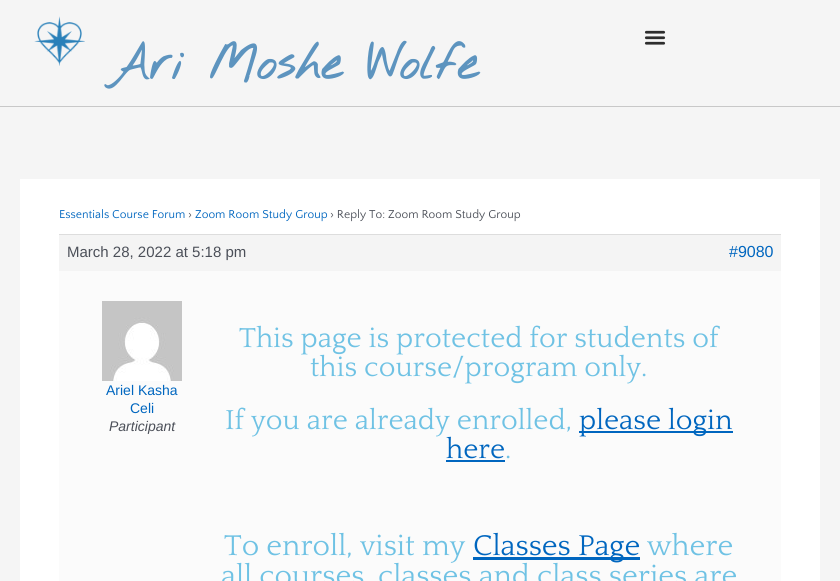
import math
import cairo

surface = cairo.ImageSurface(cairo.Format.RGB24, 840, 581)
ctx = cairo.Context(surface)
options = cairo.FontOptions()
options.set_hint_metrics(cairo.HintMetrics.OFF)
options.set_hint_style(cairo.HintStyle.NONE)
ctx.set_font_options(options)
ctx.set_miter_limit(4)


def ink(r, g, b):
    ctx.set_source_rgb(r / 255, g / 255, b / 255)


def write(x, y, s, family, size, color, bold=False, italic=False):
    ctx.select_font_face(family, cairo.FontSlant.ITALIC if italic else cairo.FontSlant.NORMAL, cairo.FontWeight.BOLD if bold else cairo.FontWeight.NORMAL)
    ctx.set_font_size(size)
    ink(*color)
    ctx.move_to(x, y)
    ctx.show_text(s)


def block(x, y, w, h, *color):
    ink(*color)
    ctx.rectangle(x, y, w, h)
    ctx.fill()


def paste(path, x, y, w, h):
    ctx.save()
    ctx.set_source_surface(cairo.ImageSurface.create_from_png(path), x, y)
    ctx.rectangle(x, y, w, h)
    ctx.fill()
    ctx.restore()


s1 = dict(family="Nothing You Could Do", size=48, color=(93, 148, 191), bold=True)
s2 = dict(family="Quattrocento Sans", size=12, color=(0, 102, 191))
s3 = dict(family="Quattrocento Sans", size=12, color=(75, 79, 88))
s4 = dict(family="Liberation Sans", size=15, color=(75, 79, 88))
s5 = dict(family="Liberation Sans", size=16, color=(0, 102, 191))
s6 = dict(family="Liberation Sans", size=14, color=(0, 102, 191))
s7 = dict(family="Liberation Sans", size=14, color=(75, 79, 88), italic=True)
s8 = dict(family="Quattrocento", size=28.75, color=(111, 194, 228))
s9 = dict(family="Quattrocento", size=28.75, color=(0, 102, 191))
s10 = dict(family="Quattrocento", size=30, color=(111, 194, 228))
s11 = dict(family="Quattrocento", size=30, color=(0, 102, 191))

ink(245, 245, 245)
ctx.paint()
block(0, 106, 840, 1, 200, 200, 200)
paste("pic1.png", 34, 16, 51, 50)
paste("pic2.png", 644, 30, 22, 15)
write(109, 79, "Ari Moshe Wolfe", **s1)
block(20, 179, 800, 402, 255, 255, 255)
write(59, 218, "Essentials Course Forum", **s2)
write(188, 218, "›", **s3)
write(195, 218, "Zoom Room Study Group", **s2)
write(330, 218, "› Reply To: Zoom Room Study Group", **s3)
block(59, 235, 722, 36, 244, 244, 244)
block(59, 234, 722, 1, 221, 221, 221)
write(67, 257, "March 28, 2022 at 5:18 pm", **s4)
write(729, 257, "#9080", **s5)
block(59, 271, 722, 310, 251, 251, 251)
paste("pic3.png", 102, 301, 80, 80)
write(106, 395, "Ariel Kasha", **s6)
write(130, 413, "Celi", **s6)
write(109, 431, "Participant", **s7)
write(239, 347, "This page is protected for students of", **s8)
write(310, 376, "this course/program only.", **s8)
write(225, 429, "If you are already enrolled,", **s8)
block(579, 431, 154, 2, 0, 102, 191)
write(579, 429, "please login", **s9)
write(446, 458, "here", **s9)
block(446, 460, 59, 2, 0, 102, 191)
write(505, 458, ".", **s8)
write(224, 555, "To enroll, visit my", **s10)
block(473, 557, 167, 3, 0, 102, 191)
write(473, 555, "Classes Page", **s11)
write(647, 555, "where", **s10)
write(221, 585, "all courses, classes and class series are", **s10)
surface.write_to_png("screenshot.png")
